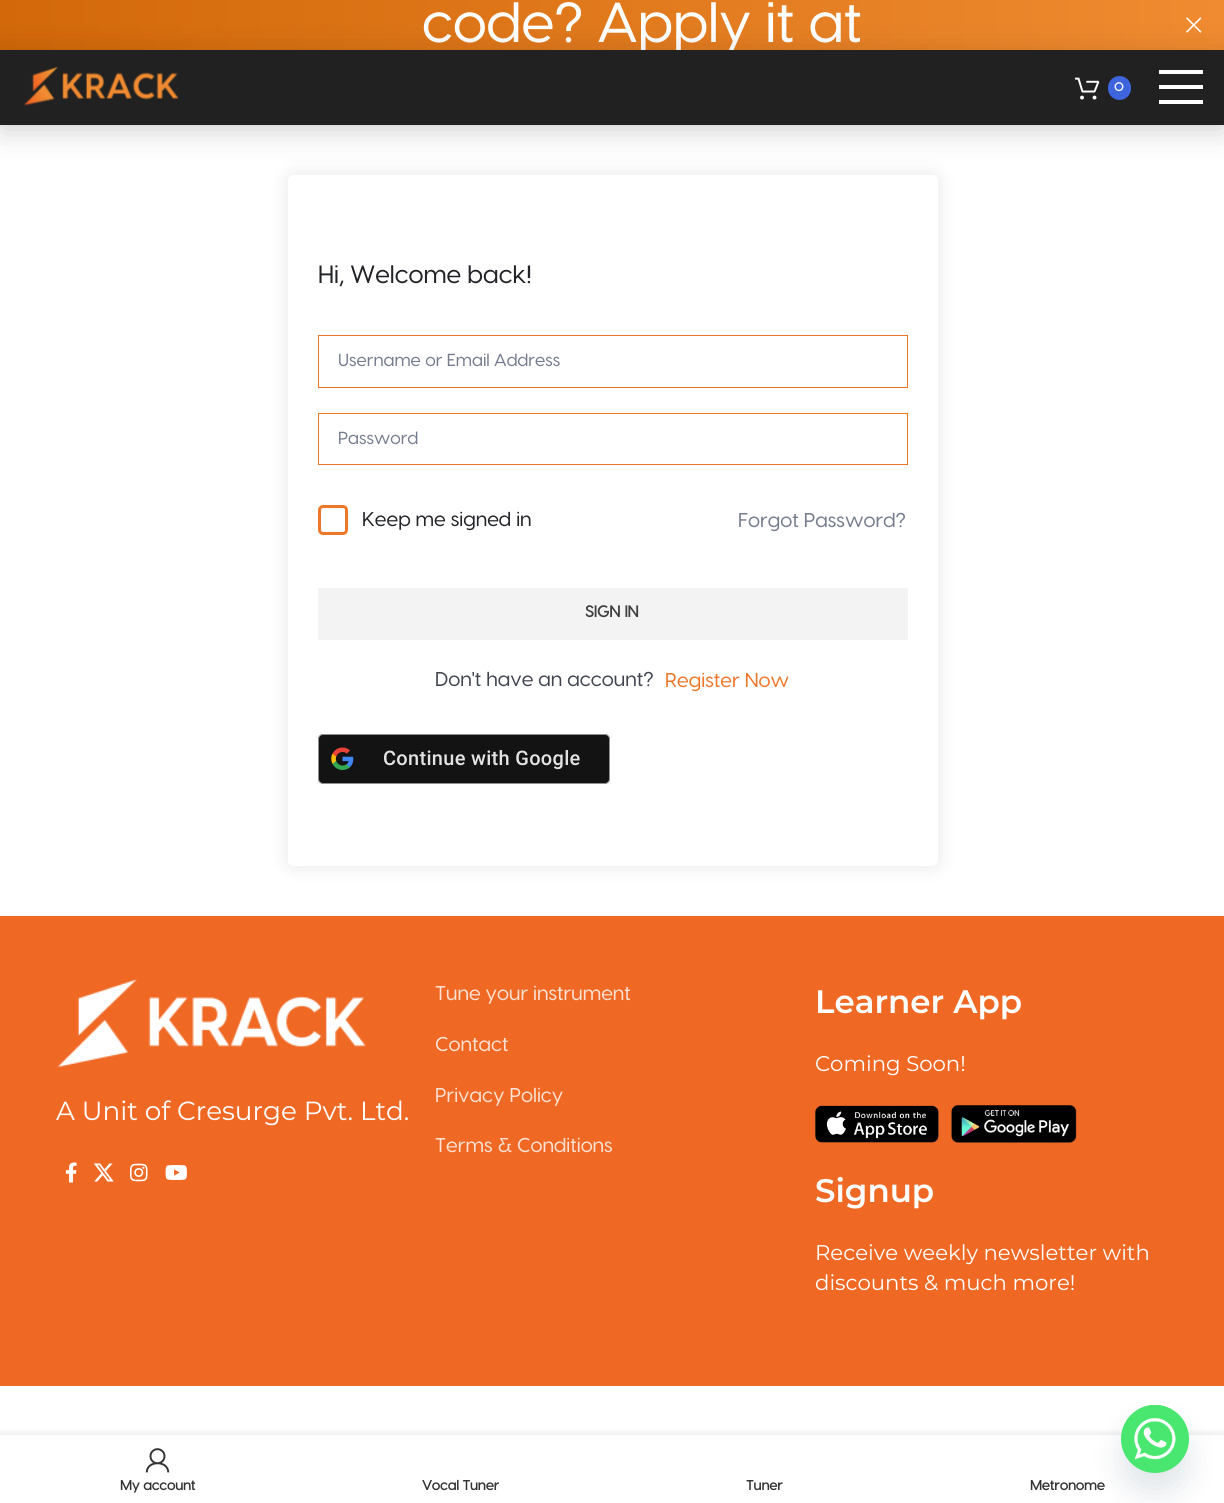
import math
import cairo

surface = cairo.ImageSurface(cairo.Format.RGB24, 1224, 1503)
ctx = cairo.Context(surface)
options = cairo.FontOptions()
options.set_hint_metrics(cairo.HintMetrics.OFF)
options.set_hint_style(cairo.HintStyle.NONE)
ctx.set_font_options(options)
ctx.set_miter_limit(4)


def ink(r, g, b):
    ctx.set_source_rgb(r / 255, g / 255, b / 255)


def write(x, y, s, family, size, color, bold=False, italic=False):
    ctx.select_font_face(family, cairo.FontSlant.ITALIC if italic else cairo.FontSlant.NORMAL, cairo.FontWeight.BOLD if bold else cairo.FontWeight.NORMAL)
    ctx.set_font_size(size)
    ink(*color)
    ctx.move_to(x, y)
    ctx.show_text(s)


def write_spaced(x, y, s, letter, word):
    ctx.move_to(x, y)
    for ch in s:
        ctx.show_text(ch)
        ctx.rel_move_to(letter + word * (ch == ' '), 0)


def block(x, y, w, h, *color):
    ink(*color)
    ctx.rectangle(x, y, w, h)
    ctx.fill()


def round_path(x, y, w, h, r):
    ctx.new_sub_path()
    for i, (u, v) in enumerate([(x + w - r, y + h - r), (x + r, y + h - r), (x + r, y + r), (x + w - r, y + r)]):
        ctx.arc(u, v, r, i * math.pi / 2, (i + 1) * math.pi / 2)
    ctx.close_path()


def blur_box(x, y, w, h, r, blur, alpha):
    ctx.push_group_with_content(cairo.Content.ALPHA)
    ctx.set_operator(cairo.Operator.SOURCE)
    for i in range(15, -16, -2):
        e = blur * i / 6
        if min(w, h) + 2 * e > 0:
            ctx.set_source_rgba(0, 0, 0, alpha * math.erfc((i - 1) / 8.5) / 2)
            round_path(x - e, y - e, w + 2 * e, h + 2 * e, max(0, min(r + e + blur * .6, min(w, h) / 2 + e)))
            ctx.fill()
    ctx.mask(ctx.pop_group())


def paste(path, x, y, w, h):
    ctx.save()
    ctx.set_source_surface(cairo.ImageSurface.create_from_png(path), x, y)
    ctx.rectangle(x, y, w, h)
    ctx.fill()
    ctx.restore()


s1 = dict(family="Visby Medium", size=56.25, color=(255, 255, 255))
s2 = dict(family="Visby", size=12, color=(255, 255, 255), bold=True)
s3 = dict(family="Visby Medium", size=25, color=(33, 35, 39))
s4 = dict(family="Visby Medium", size=17.5, color=(117, 124, 142))
s5 = dict(family="Visby Medium", size=20, color=(33, 35, 39))
s6 = dict(family="Visby Medium", size=20, color=(117, 124, 142))
s7 = dict(family="Visby", size=16, color=(62, 62, 62), bold=True)
s8 = dict(family="Visby Medium", size=20, color=(65, 69, 79))
s9 = dict(family="Visby Medium", size=20, color=(238, 118, 41))
s10 = dict(family="Montserrat", size=26.25, color=(255, 255, 255))
s11 = dict(family="Visby Medium", size=20, color=(252, 225, 211))
s12 = dict(family="Montserrat SemiBold", size=32.5, color=(255, 255, 255))
s13 = dict(family="Montserrat", size=21.25, color=(255, 255, 255))
s14 = dict(family="Visby", size=13.75, color=(51, 51, 51), bold=True)

ink(255, 255, 255)
ctx.paint()
gradient = cairo.LinearGradient(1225, 26, 0, 26)
gradient.add_color_stop_rgba(0, 0.941, 0.545, 0.192, 1)
gradient.add_color_stop_rgba(1, 0.824, 0.408, 0.035, 1)
ctx.set_source(gradient)
ctx.rectangle(0, 0, 1224, 50)
ctx.fill()
write(422, 42, "code? Apply it at", **s1)
paste("pic1.png", 1186, 17, 16, 16)
ink(0, 0, 0)
blur_box(1, 56, 1223, 73, 0, 15, 0.2)
block(0, 50, 1224, 75, 33, 33, 33)
paste("pic2.png", 24, 66, 155, 40)
paste("pic3.png", 1075, 77, 25, 23)
ink(62, 100, 222)
round_path(1108, 76, 23, 24, 11.5)
ctx.fill()
write(1114, 91, "0", **s2)
ctx.new_path()
ctx.move_to(1159, 74)
ctx.line_to(1203, 74)
ctx.line_to(1203, 70)
ctx.line_to(1159, 70)
ctx.close_path()
ctx.move_to(1159, 89)
ctx.line_to(1203, 89)
ctx.line_to(1203, 85)
ctx.line_to(1159, 85)
ctx.close_path()
ctx.move_to(1159, 104)
ctx.line_to(1203, 104)
ctx.line_to(1203, 100)
ctx.line_to(1159, 100)
ctx.close_path()
ctx.fill()
ctx.save()
ctx.set_fill_rule(cairo.FillRule.EVEN_ODD)
ctx.new_path()
ctx.move_to(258, 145)
ctx.line_to(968, 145)
ctx.line_to(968, 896)
ctx.line_to(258, 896)
ctx.close_path()
ctx.move_to(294, 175)
ctx.line_to(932, 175)
ctx.curve_to(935.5, 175, 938, 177.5, 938, 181)
ctx.line_to(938, 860)
ctx.curve_to(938, 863.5, 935.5, 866, 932, 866)
ctx.line_to(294, 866)
ctx.curve_to(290.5, 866, 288, 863.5, 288, 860)
ctx.line_to(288, 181)
ctx.curve_to(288, 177.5, 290.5, 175, 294, 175)
ctx.close_path()
ctx.clip()
ink(0, 0, 0)
blur_box(288, 175, 650, 691, 6, 9.5, 0.1)
ctx.restore()
write(318, 283, "Hi, Welcome back!", **s3)
ctx.rectangle(318.5, 335.5, 589, 52)
ink(238, 118, 41)
ctx.set_line_width(1)
ctx.stroke()
write(338, 366, "Username or Email Address", **s4)
ctx.rectangle(318.5, 413.5, 589, 51)
ink(238, 118, 41)
ctx.stroke()
write(338, 444, "Password", **s4)
round_path(319.5, 506.5, 27, 27, 3.5)
ink(238, 118, 41)
ctx.set_line_width(3)
ctx.stroke()
write(362, 526, "Keep me signed in", **s5)
write(738, 527, "Forgot Password?", **s6)
block(318, 588, 590, 52, 243, 243, 243)
write(585, 617, "SIGN IN", **s7)
write(435, 686, "Don't have an account?", **s8)
write(665, 687, "Register Now", **s9)
ink(19, 19, 20)
round_path(318.5, 734.5, 291, 49, 4.5)
ctx.fill_preserve()
ink(142, 145, 143)
ctx.set_line_width(1)
ctx.stroke()
paste("pic4.png", 331, 747, 23, 23)
ctx.select_font_face("Roboto Medium")
ink(227, 227, 227)
write_spaced(383, 765, "Continue with Google", 0.3, 0)
block(0, 916, 1224, 470, 239, 105, 37)
paste("pic5.png", 57, 979, 309, 89)
write(56, 1120, "A Unit of Cresurge Pvt. Ltd.", **s10)
paste("pic6.png", 65, 1162, 12, 21)
paste("pic7.png", 93, 1163, 21, 19)
paste("pic8.png", 130, 1163, 18, 19)
paste("pic9.png", 165, 1165, 22, 15)
write(435, 1000, "Tune your instrument", **s11)
write(435, 1051, "Contact", **s11)
write(435, 1102, "Privacy Policy", **s11)
write(435, 1152, "Terms & Conditions", **s11)
write(815, 1013, "Learner App", **s12)
write(815, 1071, "Coming Soon!", **s13)
paste("pic10.png", 815, 1105, 124, 38)
paste("pic11.png", 951, 1105, 126, 38)
write(815, 1202, "Signup", **s12)
write(815, 1260, "Receive weekly newsletter with", **s13)
write(815, 1290, "discounts & much more!", **s13)
ctx.save()
ctx.rectangle(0, 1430, 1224, 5)
ctx.clip()
ink(0, 0, 0)
blur_box(0, 1435, 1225, 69, 0, 5.5, 0.12)
ctx.restore()
paste("pic12.png", 145, 1448, 25, 25)
write(120, 1490, "My account", **s14)
write(422, 1490, "Vocal Tuner", **s14)
write(746, 1490, "Tuner", **s14)
write(1030, 1490, "Metronome", **s14)
ink(73, 104, 126)
blur_box(1121, 1425, 68, 68, 34, 15, 0.16)
ink(73, 230, 112)
ctx.arc(1155, 1439, 34, 0, 2 * math.pi)
ctx.fill()
paste("pic13.png", 1121, 1405, 68, 55)
surface.write_to_png("screenshot.png")
